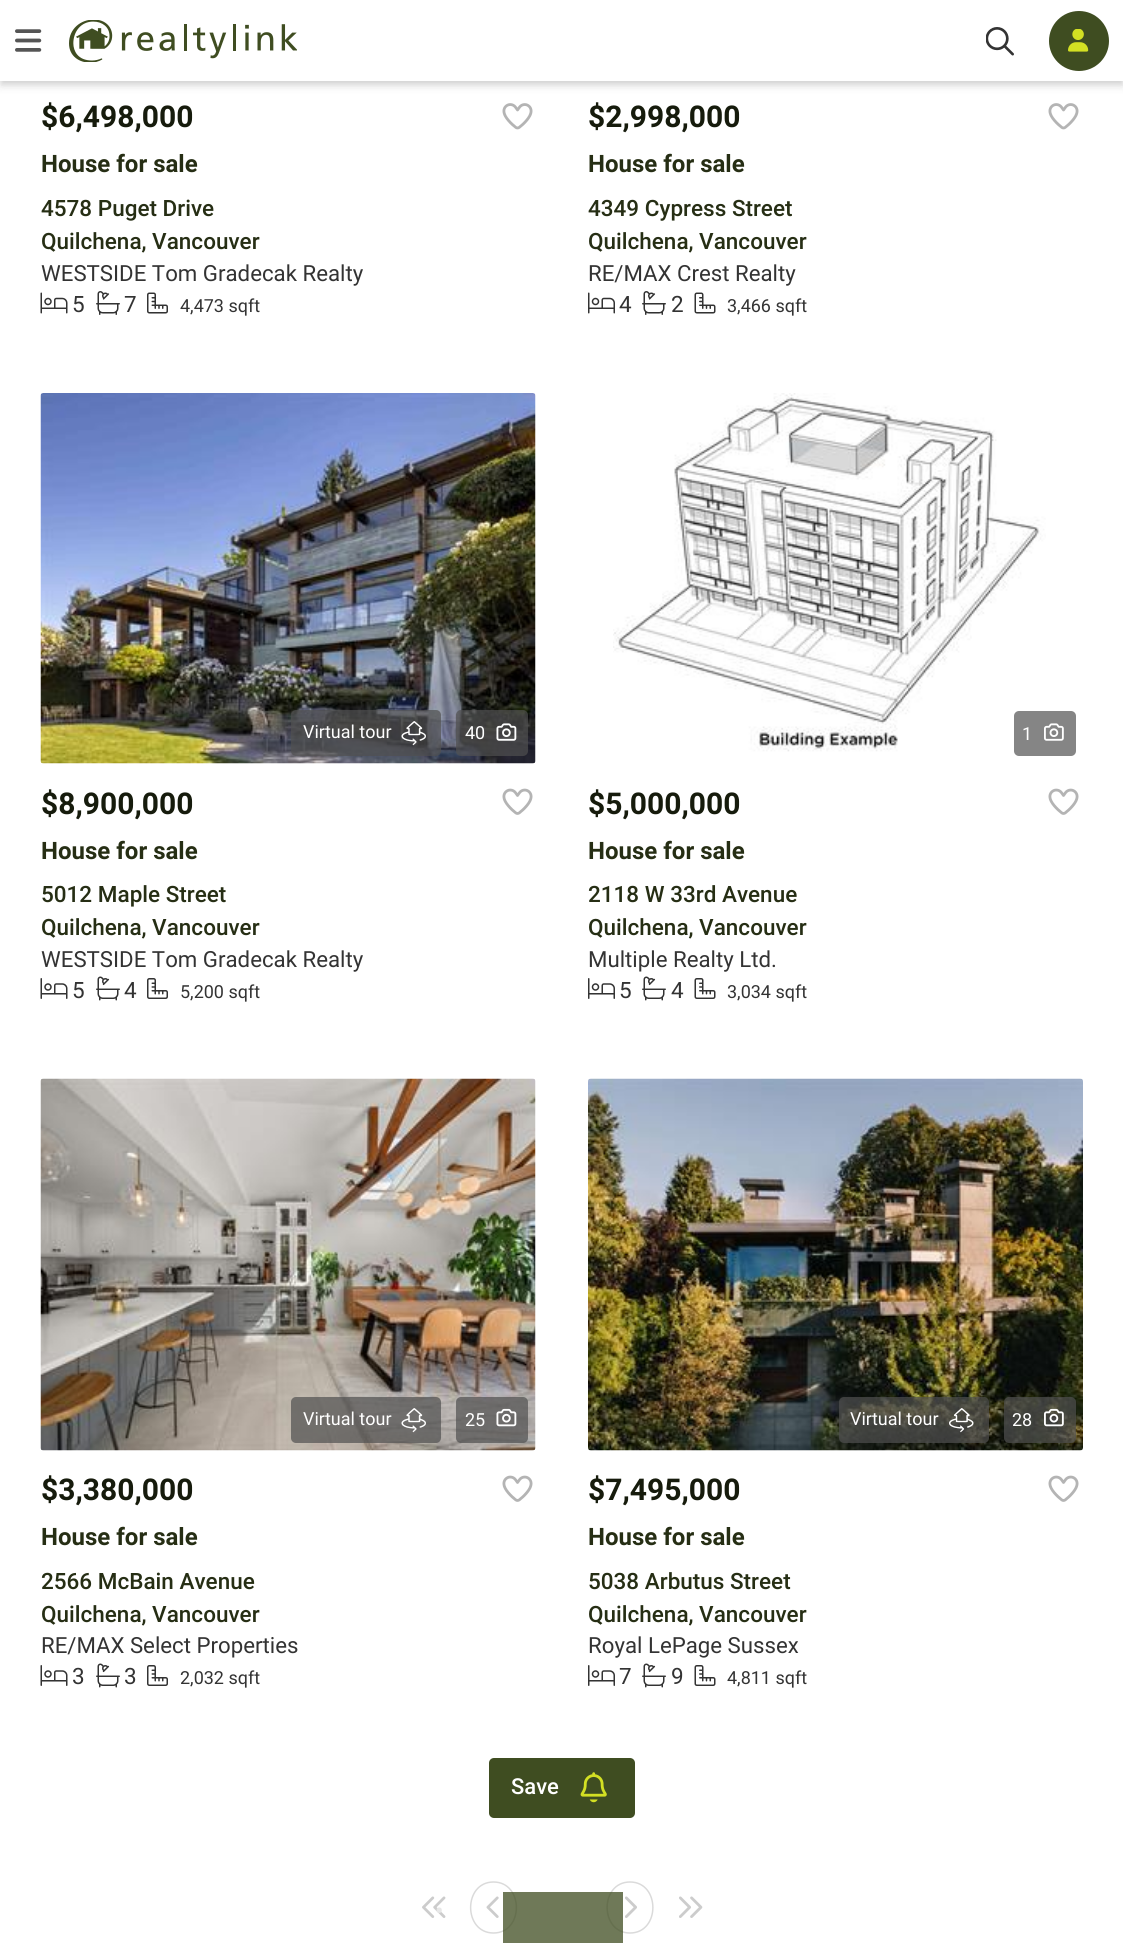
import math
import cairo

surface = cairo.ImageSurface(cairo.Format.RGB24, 1123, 1943)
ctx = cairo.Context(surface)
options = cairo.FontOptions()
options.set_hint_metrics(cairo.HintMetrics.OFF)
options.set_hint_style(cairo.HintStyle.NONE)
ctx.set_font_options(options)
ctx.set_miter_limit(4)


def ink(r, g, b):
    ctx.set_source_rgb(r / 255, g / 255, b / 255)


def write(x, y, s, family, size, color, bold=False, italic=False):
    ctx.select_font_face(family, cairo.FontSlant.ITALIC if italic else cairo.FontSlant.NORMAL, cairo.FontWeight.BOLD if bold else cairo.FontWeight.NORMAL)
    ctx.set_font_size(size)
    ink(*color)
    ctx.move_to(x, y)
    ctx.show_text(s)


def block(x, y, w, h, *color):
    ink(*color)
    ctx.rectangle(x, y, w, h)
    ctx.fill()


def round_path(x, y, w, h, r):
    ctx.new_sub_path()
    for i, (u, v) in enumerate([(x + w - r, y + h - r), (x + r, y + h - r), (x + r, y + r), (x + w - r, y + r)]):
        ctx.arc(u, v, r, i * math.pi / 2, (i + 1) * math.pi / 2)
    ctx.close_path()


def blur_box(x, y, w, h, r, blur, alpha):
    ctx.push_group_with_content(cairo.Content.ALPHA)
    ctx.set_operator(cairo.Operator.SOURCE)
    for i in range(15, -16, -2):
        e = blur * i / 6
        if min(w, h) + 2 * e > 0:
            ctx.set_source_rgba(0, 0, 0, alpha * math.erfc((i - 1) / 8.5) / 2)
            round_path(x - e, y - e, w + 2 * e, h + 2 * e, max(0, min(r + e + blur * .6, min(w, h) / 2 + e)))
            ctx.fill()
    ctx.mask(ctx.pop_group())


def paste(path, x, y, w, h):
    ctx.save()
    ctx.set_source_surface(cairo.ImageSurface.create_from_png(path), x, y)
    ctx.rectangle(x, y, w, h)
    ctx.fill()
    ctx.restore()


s1 = dict(family="Roboto", size=30, color=(22, 27, 12), bold=True)
s2 = dict(family="Roboto", size=24, color=(38, 46, 20), bold=True)
s3 = dict(family="Roboto Medium", size=22.5, color=(38, 46, 20))
s4 = dict(family="Roboto", size=22.25, color=(51, 51, 51))
s5 = dict(family="Roboto", size=22.5, color=(51, 51, 51))
s6 = dict(family="Roboto", size=18, color=(51, 51, 51))
s7 = dict(family="Roboto", size=18, color=(255, 255, 255))
s8 = dict(family="Roboto Medium", size=22, color=(255, 255, 255))
s9 = dict(family="Roboto Medium", size=24, color=(231, 231, 231))

ink(255, 255, 255)
ctx.paint()
paste("pic5.png", 502, 103, 31, 27)
paste("pic5.png", 1048, 103, 31, 27)
ink(0, 0, 0)
blur_box(0, 2, 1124, 81, 0, 7.5, 0.06)
blur_box(0, 6, 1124, 81, 0, 4, 0.07)
blur_box(2, 5, 1120, 78, 0, 3, 0.1)
block(0, 0, 1123, 81, 255, 255, 255)
paste("pic1.png", 15, 29, 27, 23)
paste("pic2.png", 69, 20, 228, 42)
paste("pic3.png", 986, 27, 28, 29)
ink(63, 77, 33)
ctx.arc(1079, 41, 30, 0, 2 * math.pi)
ctx.fill()
paste("pic4.png", 1068, 29, 21, 23)
write(41, 127, "$6,498,000", **s1)
write(41, 172, "House for sale", **s2)
write(41, 216, "4578 Puget Drive", **s3)
write(41, 249, "Quilchena, Vancouver", **s3)
write(41, 281, "WESTSIDE Tom Gradecak Realty", **s4)
paste("pic6.png", 40, 292, 28, 22)
write(72, 312, "5", **s5)
paste("pic7.png", 96, 291, 24, 24)
write(124, 312, "7", **s5)
paste("pic8.png", 147, 292, 21, 22)
write(180, 312, "4,473 sqft", **s6)
write(588, 127, "$2,998,000", **s1)
write(588, 172, "House for sale", **s2)
write(588, 216, "4349 Cypress Street", **s3)
write(588, 249, "Quilchena, Vancouver", **s3)
write(588, 281, "RE/MAX Crest Realty", **s4)
paste("pic9.png", 588, 292, 27, 22)
write(619, 312, "4", **s5)
paste("pic7.png", 642, 291, 24, 24)
write(671, 312, "2", **s5)
paste("pic10.png", 694, 292, 22, 22)
write(727, 312, "3,466 sqft", **s6)
paste("pic11.png", 40, 393, 496, 371)
ctx.set_source_rgba(0.314, 0.314, 0.314, 0.7)
round_path(291, 710, 150, 46, 5)
ctx.fill()
write(303, 738, "Virtual tour", **s7)
paste("pic12.png", 401, 721, 25, 25)
ctx.set_source_rgba(0.314, 0.314, 0.314, 0.7)
round_path(456, 710, 72, 46, 5)
ctx.fill()
write(465, 739, "40", **s7)
paste("pic13.png", 496, 723, 21, 18)
write(41, 814, "$8,900,000", **s1)
paste("pic14.png", 502, 788, 31, 27)
write(41, 859, "House for sale", **s2)
write(41, 902, "5012 Maple Street", **s3)
write(41, 935, "Quilchena, Vancouver", **s3)
write(41, 967, "WESTSIDE Tom Gradecak Realty", **s4)
paste("pic15.png", 40, 978, 28, 21)
write(72, 998, "5", **s5)
paste("pic16.png", 96, 976, 24, 25)
write(124, 998, "4", **s5)
paste("pic17.png", 147, 978, 21, 21)
write(180, 998, "5,200 sqft", **s6)
paste("pic18.png", 613, 393, 433, 359)
ink(133, 133, 133)
round_path(1014, 711, 62, 45, 5)
ctx.fill()
write(1022, 740, "1", **s7)
paste("pic19.png", 1044, 723, 20, 18)
write(588, 814, "$5,000,000", **s1)
paste("pic14.png", 1048, 788, 31, 27)
write(588, 859, "House for sale", **s2)
write(588, 902, "2118 W 33rd Avenue", **s3)
write(588, 935, "Quilchena, Vancouver", **s3)
write(588, 967, "Multiple Realty Ltd.", **s4)
paste("pic20.png", 588, 978, 27, 21)
write(619, 998, "5", **s5)
paste("pic16.png", 642, 976, 24, 25)
write(671, 998, "4", **s5)
paste("pic21.png", 694, 978, 22, 21)
write(727, 998, "3,034 sqft", **s6)
paste("pic22.png", 40, 1078, 496, 373)
ctx.set_source_rgba(0.314, 0.314, 0.314, 0.7)
round_path(291, 1397, 150, 46, 5)
ctx.fill()
write(303, 1425, "Virtual tour", **s7)
paste("pic23.png", 401, 1408, 25, 25)
ctx.set_source_rgba(0.314, 0.314, 0.314, 0.7)
round_path(456, 1397, 72, 46, 5)
ctx.fill()
write(465, 1426, "25", **s7)
paste("pic24.png", 496, 1408, 21, 19)
write(41, 1500, "$3,380,000", **s1)
paste("pic14.png", 502, 1475, 31, 27)
write(41, 1545, "House for sale", **s2)
write(41, 1589, "2566 McBain Avenue", **s3)
write(41, 1622, "Quilchena, Vancouver", **s3)
write(41, 1653, "RE/MAX Select Properties", **s4)
paste("pic15.png", 40, 1665, 28, 21)
write(72, 1684, "3", **s5)
paste("pic16.png", 96, 1663, 24, 25)
write(124, 1684, "3", **s5)
paste("pic17.png", 147, 1665, 21, 21)
write(180, 1684, "2,032 sqft", **s6)
paste("pic25.png", 588, 1078, 495, 373)
ctx.set_source_rgba(0.314, 0.314, 0.314, 0.7)
round_path(839, 1397, 150, 46, 5)
ctx.fill()
write(850, 1425, "Virtual tour", **s7)
paste("pic26.png", 949, 1408, 25, 25)
ctx.set_source_rgba(0.314, 0.314, 0.314, 0.7)
round_path(1004, 1397, 72, 46, 5)
ctx.fill()
write(1012, 1426, "28", **s7)
paste("pic27.png", 1044, 1408, 20, 19)
write(588, 1500, "$7,495,000", **s1)
paste("pic14.png", 1048, 1475, 31, 27)
write(588, 1545, "House for sale", **s2)
write(588, 1589, "5038 Arbutus Street", **s3)
write(588, 1622, "Quilchena, Vancouver", **s3)
write(588, 1653, "Royal LePage Sussex", **s4)
paste("pic20.png", 588, 1665, 27, 21)
write(619, 1684, "7", **s5)
paste("pic16.png", 642, 1663, 24, 25)
write(671, 1684, "9", **s5)
paste("pic21.png", 694, 1665, 22, 21)
write(727, 1684, "4,811 sqft", **s6)
ink(63, 77, 33)
round_path(489, 1758, 146, 60, 5)
ctx.fill()
write(511, 1794, "Save", **s8)
paste("pic28.png", 580, 1772, 27, 31)
paste("pic29.png", 422, 1896, 24, 22)
write(435, 1919, "•", **s9)
ctx.new_path()
ctx.move_to(493.5, 1882)
ctx.curve_to(524, 1882, 524, 1933, 493.5, 1933)
ctx.curve_to(463, 1933, 463, 1882, 493.5, 1882)
ctx.close_path()
ink(218, 218, 218)
ctx.set_line_width(1.5)
ctx.stroke()
paste("pic30.png", 486, 1896, 13, 22)
ctx.new_path()
ctx.move_to(630, 1882)
ctx.curve_to(660.5, 1882, 660.5, 1933, 630, 1933)
ctx.curve_to(599.5, 1933, 599.5, 1882, 630, 1882)
ctx.close_path()
ctx.stroke()
paste("pic31.png", 625, 1896, 12, 22)
paste("pic32.png", 679, 1896, 24, 22)
ctx.set_source_rgba(0.247, 0.302, 0.129, 0.75)
ctx.rectangle(503, 1892, 120, 51)
ctx.fill()
surface.write_to_png("screenshot.png")
